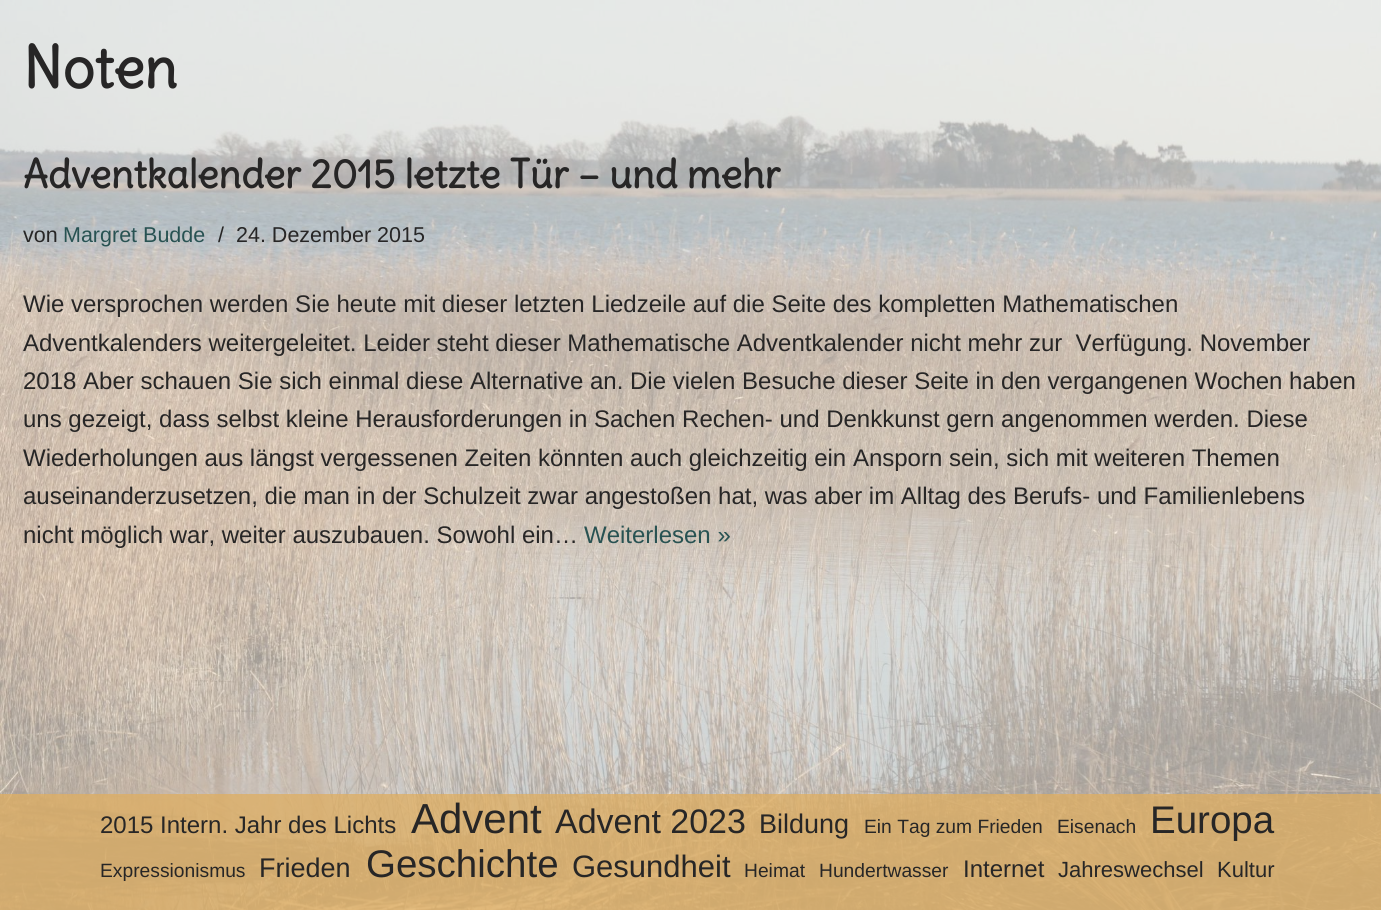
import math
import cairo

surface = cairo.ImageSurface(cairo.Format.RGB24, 1381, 910)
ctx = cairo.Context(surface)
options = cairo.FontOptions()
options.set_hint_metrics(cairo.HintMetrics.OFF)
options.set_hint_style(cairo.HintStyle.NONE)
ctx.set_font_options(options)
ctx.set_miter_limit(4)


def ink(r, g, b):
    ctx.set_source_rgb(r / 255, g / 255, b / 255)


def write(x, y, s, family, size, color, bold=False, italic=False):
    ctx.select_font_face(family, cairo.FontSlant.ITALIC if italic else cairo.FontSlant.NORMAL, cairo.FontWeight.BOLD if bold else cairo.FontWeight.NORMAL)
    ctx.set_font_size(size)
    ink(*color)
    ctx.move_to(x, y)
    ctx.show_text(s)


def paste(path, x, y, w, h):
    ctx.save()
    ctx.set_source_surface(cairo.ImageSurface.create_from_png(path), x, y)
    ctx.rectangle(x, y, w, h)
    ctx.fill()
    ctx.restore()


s1 = dict(family="Delius", size=57, color=(39, 38, 38), bold=True)
s2 = dict(family="Delius", size=39, color=(39, 38, 38), bold=True)
s3 = dict(family="Liberation Sans", size=21.5, color=(39, 38, 38))
s4 = dict(family="Liberation Sans", size=21.5, color=(40, 82, 82))
s5 = dict(family="Liberation Sans", size=24, color=(39, 38, 38))
s6 = dict(family="Liberation Sans", size=24, color=(40, 82, 82))
s7 = dict(family="Liberation Sans", size=42, color=(39, 38, 38))
s8 = dict(family="Liberation Sans", size=34, color=(39, 38, 38))
s9 = dict(family="Liberation Sans", size=27, color=(39, 38, 38))
s10 = dict(family="Liberation Sans", size=19.25, color=(39, 38, 38))
s11 = dict(family="Liberation Sans", size=38.5, color=(39, 38, 38))
s12 = dict(family="Liberation Sans", size=31, color=(39, 38, 38))
s13 = dict(family="Liberation Sans", size=22, color=(39, 38, 38))

ink(255, 255, 255)
ctx.paint()
paste("pic1.png", 0, 0, 1381, 910)
ctx.set_source_rgba(1, 0.965, 0.941, 0.6)
ctx.rectangle(0, 0, 1381, 794)
ctx.fill()
write(23, 88, "Noten", **s1)
write(23, 188, "Adventkalender 2015 letzte Tür – und mehr", **s2)
write(23, 242, "von", **s3)
write(63, 242, "Margret Budde", **s4)
write(218, 242, "/", **s3)
write(236, 242, "24. Dezember 2015", **s3)
write(23, 312, "Wie versprochen werden Sie heute mit dieser letzten Liedzeile auf die Seite des kompletten Mathematischen", **s5)
write(23, 351, "Adventkalenders weitergeleitet. Leider steht dieser Mathematische Adventkalender nicht mehr zur  Verfügung. November", **s5)
write(23, 389, "2018 Aber schauen Sie sich einmal diese Alternative an. Die vielen Besuche dieser Seite in den vergangenen Wochen haben", **s5)
write(23, 427, "uns gezeigt, dass selbst kleine Herausforderungen in Sachen Rechen- und Denkkunst gern angenommen werden. Diese", **s5)
write(23, 466, "Wiederholungen aus längst vergessenen Zeiten könnten auch gleichzeitig ein Ansporn sein, sich mit weiteren Themen", **s5)
write(23, 504, "auseinanderzusetzen, die man in der Schulzeit zwar angestoßen hat, was aber im Alltag des Berufs- und Familienlebens", **s5)
write(23, 543, "nicht möglich war, weiter auszubauen. Sowohl ein…", **s5)
write(584, 543, "Weiterlesen »", **s6)
ctx.set_source_rgba(0.89, 0.729, 0.471, 0.69)
ctx.rectangle(0, 794, 1381, 116)
ctx.fill()
ctx.rectangle(0, 794, 1381, 116)
ctx.fill()
write(100, 833, "2015 Intern. Jahr des Lichts", **s5)
write(411, 833, "Advent", **s7)
write(555, 833, "Advent 2023", **s8)
write(759, 833, "Bildung", **s9)
write(864, 833, "Ein Tag zum Frieden", **s10)
write(1057, 833, "Eisenach", **s10)
write(1150, 833, "Europa", **s11)
write(100, 877, "Expressionismus", **s10)
write(259, 877, "Frieden", **s9)
write(366, 877, "Geschichte", **s11)
write(572, 877, "Gesundheit", **s12)
write(744, 877, "Heimat", **s10)
write(819, 877, "Hundertwasser", **s10)
write(963, 877, "Internet", **s5)
write(1058, 877, "Jahreswechsel", **s13)
write(1217, 877, "Kultur", **s13)
surface.write_to_png("screenshot.png")
